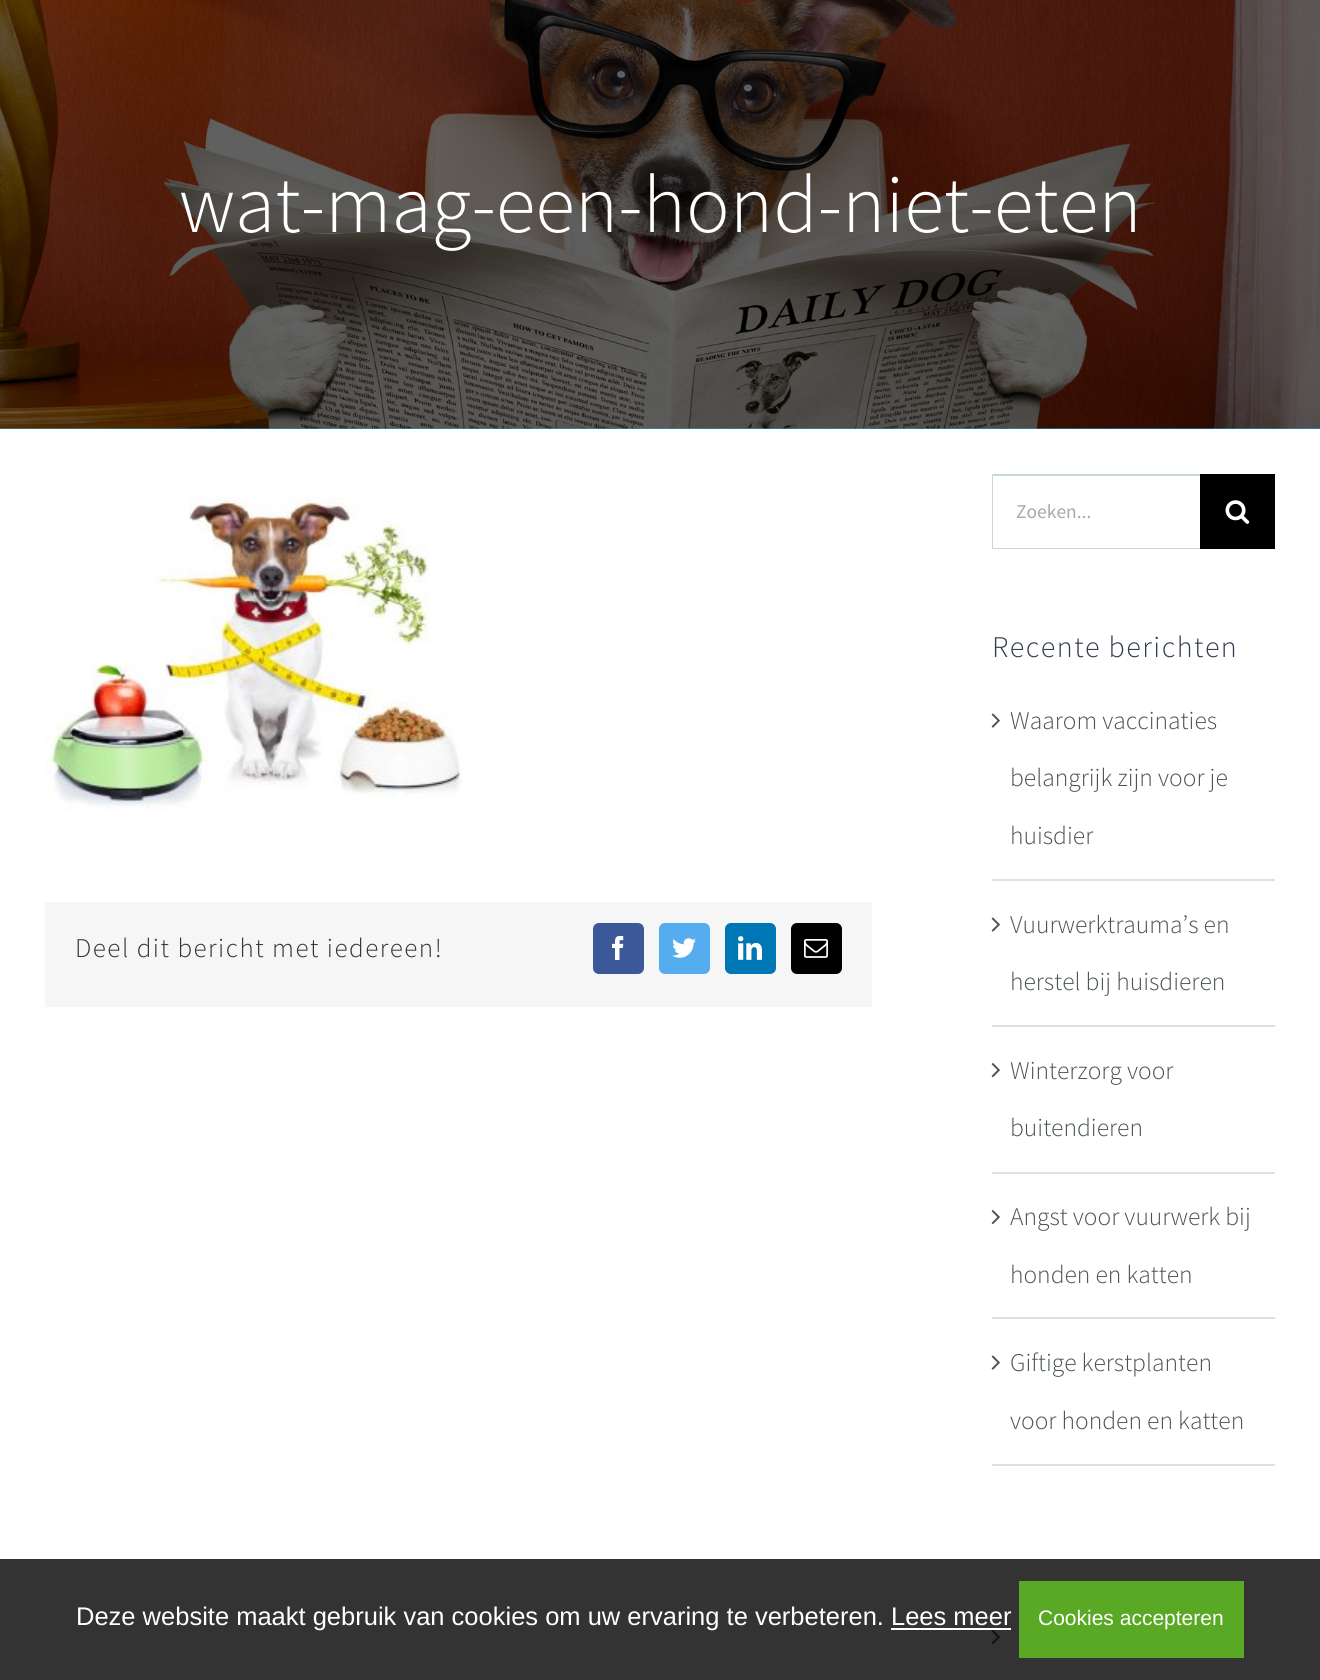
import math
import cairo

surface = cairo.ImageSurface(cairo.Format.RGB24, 1320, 1680)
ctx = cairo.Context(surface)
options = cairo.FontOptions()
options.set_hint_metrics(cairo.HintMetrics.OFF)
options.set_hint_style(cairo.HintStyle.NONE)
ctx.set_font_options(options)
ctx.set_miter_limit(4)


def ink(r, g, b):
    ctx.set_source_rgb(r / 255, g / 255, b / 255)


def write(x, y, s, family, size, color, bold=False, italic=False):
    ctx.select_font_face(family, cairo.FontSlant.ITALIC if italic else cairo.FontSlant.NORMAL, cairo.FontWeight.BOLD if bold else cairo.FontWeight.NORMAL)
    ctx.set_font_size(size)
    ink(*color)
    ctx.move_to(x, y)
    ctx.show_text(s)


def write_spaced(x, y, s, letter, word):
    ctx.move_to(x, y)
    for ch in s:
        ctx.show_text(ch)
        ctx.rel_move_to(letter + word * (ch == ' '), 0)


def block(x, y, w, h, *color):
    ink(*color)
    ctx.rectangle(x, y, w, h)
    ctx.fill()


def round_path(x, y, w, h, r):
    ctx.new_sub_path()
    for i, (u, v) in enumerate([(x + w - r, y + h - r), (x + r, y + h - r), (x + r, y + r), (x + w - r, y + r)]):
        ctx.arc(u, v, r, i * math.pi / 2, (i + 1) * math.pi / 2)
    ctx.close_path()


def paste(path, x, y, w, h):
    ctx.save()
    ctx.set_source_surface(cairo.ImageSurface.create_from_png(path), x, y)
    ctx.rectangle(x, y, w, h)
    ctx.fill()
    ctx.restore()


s1 = dict(family="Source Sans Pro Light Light", size=81.75, color=(255, 255, 255))
s2 = dict(family="Source Sans Pro", size=19.5, color=(170, 169, 169))
s3 = dict(family="Source Sans Pro Light Light", size=25.5, color=(74, 82, 84))
s4 = dict(family="Liberation Sans", size=25.5, color=(255, 255, 255))
s5 = dict(family="Liberation Sans", size=21, color=(255, 255, 255))

ink(255, 255, 255)
ctx.paint()
block(0, 428, 1320, 1, 7, 168, 224)
paste("pic1.png", 0, 0, 1320, 429)
write(179, 232, "wat-mag-een-hond-niet-eten", **s1)
paste("pic2.png", 45, 497, 417, 314)
block(45, 902, 827, 105, 246, 246, 246)
ctx.set_font_size(27)
ink(51, 51, 51)
write_spaced(75, 957, "Deel dit bericht met iedereen!", 1.5, 0)
ink(59, 89, 152)
round_path(594, 924, 49, 49, 5)
ctx.fill_preserve()
ctx.stroke()
paste("pic3.png", 612, 936, 12, 24)
ink(85, 172, 238)
round_path(660, 924, 49, 49, 5)
ctx.fill_preserve()
ctx.stroke()
paste("pic4.png", 672, 938, 24, 20)
ink(0, 119, 181)
round_path(726, 924, 49, 49, 5)
ctx.fill_preserve()
ctx.stroke()
paste("pic5.png", 738, 936, 24, 24)
ink(0, 0, 0)
round_path(792, 924, 49, 49, 5)
ctx.fill_preserve()
ctx.stroke()
paste("pic6.png", 804, 939, 24, 19)
ink(200, 215, 217)
ctx.new_path()
ctx.move_to(992, 474)
ctx.line_to(1200, 474)
ctx.line_to(1200, 476)
ctx.line_to(993, 476)
ctx.close_path()
ctx.fill()
ctx.new_path()
ctx.move_to(1200, 549)
ctx.line_to(992, 549)
ctx.line_to(993, 548)
ctx.line_to(1200, 548)
ctx.close_path()
ctx.fill()
ctx.set_source_rgba(0.718, 0.796, 0.808, 0.77)
ctx.new_path()
ctx.move_to(992, 549)
ctx.line_to(992, 474)
ctx.line_to(993, 476)
ctx.line_to(993, 548)
ctx.close_path()
ctx.fill()
write(1016, 518, "Zoeken...", **s2)
block(1200, 474, 75, 75, 0, 0, 0)
paste("pic7.png", 1225, 500, 25, 24)
ctx.select_font_face("Source Sans Pro Light Light")
ctx.set_font_size(30)
ink(51, 60, 78)
write_spaced(992, 657, "Recente berichten", 1.5, 0)
block(992, 879, 283, 2, 224, 222, 222)
paste("pic8.png", 991, 713, 9, 15)
write(1010, 729, "Waarom vaccinaties", **s3)
write(1010, 786, "belangrijk zijn voor je", **s3)
write(1010, 844, "huisdier", **s3)
block(992, 1025, 283, 2, 224, 222, 222)
paste("pic8.png", 991, 917, 9, 15)
write(1010, 933, "Vuurwerktrauma’s en", **s3)
write(1010, 990, "herstel bij huisdieren", **s3)
block(992, 1172, 283, 2, 224, 222, 222)
paste("pic9.png", 991, 1063, 9, 15)
write(1010, 1079, "Winterzorg voor", **s3)
write(1010, 1136, "buitendieren", **s3)
block(992, 1317, 283, 2, 224, 222, 222)
paste("pic9.png", 991, 1210, 9, 15)
write(1010, 1225, "Angst voor vuurwerk bij", **s3)
write(1010, 1283, "honden en katten", **s3)
block(992, 1464, 283, 2, 224, 222, 222)
paste("pic8.png", 991, 1355, 9, 15)
write(1010, 1371, "Giftige kerstplanten", **s3)
write(1010, 1429, "voor honden en katten", **s3)
paste("pic9.png", 991, 1630, 9, 15)
ctx.set_source_rgba(0, 0, 0, 0.8)
ctx.rectangle(0, 1559, 1320, 121)
ctx.fill()
write(76, 1625, "Deze website maakt gebruik van cookies om uw ervaring te verbeteren. Lees meer", **s4)
block(1019, 1581, 225, 77, 89, 169, 36)
write(1038, 1625, "Cookies accepteren", **s5)
block(891, 1628, 120, 2, 255, 255, 255)
surface.write_to_png("screenshot.png")
